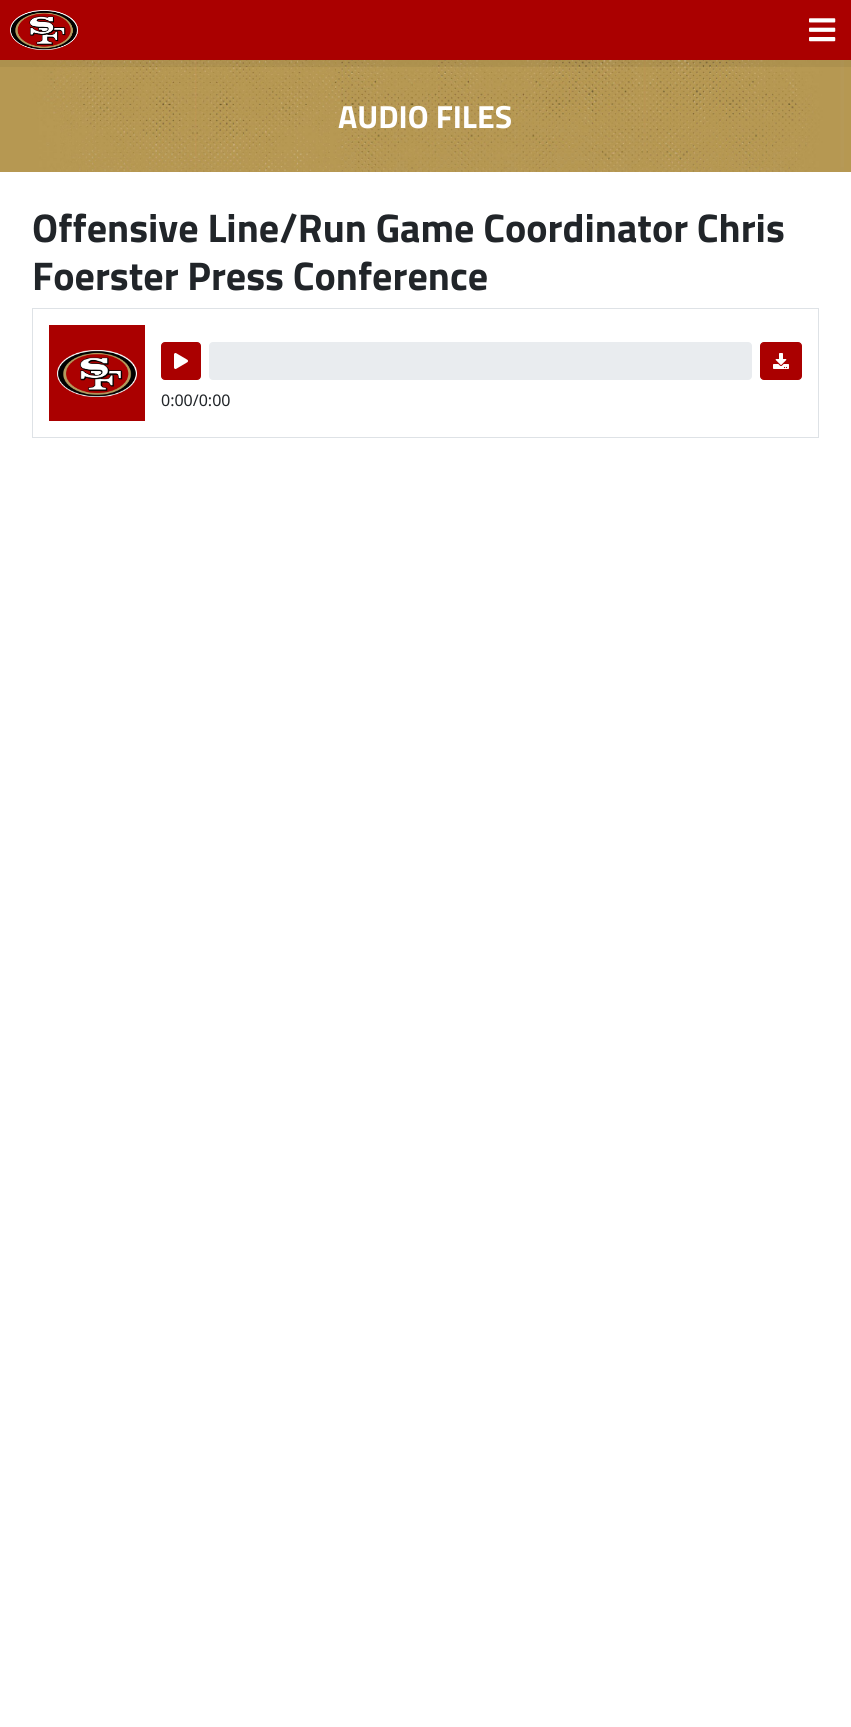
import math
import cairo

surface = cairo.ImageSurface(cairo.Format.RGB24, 851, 1727)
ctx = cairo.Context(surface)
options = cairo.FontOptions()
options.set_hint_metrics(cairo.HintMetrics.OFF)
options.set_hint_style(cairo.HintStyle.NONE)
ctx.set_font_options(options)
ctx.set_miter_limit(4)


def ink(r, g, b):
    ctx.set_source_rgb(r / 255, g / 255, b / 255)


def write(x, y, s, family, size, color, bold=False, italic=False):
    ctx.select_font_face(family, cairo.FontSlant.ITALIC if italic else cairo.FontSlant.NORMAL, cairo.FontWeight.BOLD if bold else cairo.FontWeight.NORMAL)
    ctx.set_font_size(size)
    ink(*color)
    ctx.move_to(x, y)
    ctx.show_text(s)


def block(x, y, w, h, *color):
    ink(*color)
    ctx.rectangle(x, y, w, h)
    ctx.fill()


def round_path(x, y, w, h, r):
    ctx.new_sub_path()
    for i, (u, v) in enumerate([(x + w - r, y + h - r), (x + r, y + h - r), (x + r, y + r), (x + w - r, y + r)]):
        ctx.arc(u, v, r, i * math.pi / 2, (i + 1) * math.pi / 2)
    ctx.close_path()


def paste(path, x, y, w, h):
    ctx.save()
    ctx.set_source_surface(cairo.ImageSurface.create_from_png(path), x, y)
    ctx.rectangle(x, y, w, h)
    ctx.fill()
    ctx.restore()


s1 = dict(family="Titillium Web", size=32, color=(255, 255, 255), bold=True)
s2 = dict(family="Titillium Web", size=40, color=(33, 37, 41), bold=True)
s3 = dict(family="Noto Sans", size=16, color=(33, 37, 41))

ink(255, 255, 255)
ctx.paint()
paste("pic3.png", 0, 60, 851, 112)
ctx.rectangle(-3.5, -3.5, 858, 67)
ctx.set_source_rgba(0, 0, 0, 0.05)
ctx.set_line_width(7)
ctx.stroke()
block(0, 0, 851, 60, 170, 0, 0)
paste("pic1.png", 10, 10, 68, 40)
paste("pic2.png", 809, 18, 27, 24)
write(338, 128, "AUDIO FILES", **s1)
write(32, 242, "Offensive Line/Run Game Coordinator Chris", **s2)
write(32, 290, "Foerster Press Conference", **s2)
ctx.rectangle(32.5, 308.5, 786, 129)
ink(222, 226, 230)
ctx.set_line_width(1)
ctx.stroke()
block(49, 325, 96, 96, 170, 0, 0)
paste("pic4.png", 57, 350, 80, 47)
round_path(161.5, 342.5, 39, 37, 3.5)
ctx.fill_preserve()
ctx.stroke()
paste("pic5.png", 174, 353, 14, 16)
ink(233, 236, 239)
round_path(209, 342, 543, 38, 4)
ctx.fill()
ink(170, 0, 0)
round_path(760.5, 342.5, 41, 37, 3.5)
ctx.fill_preserve()
ctx.stroke()
paste("pic6.png", 773, 353, 16, 16)
write(161, 406, "0:00/0:00", **s3)
surface.write_to_png("screenshot.png")
